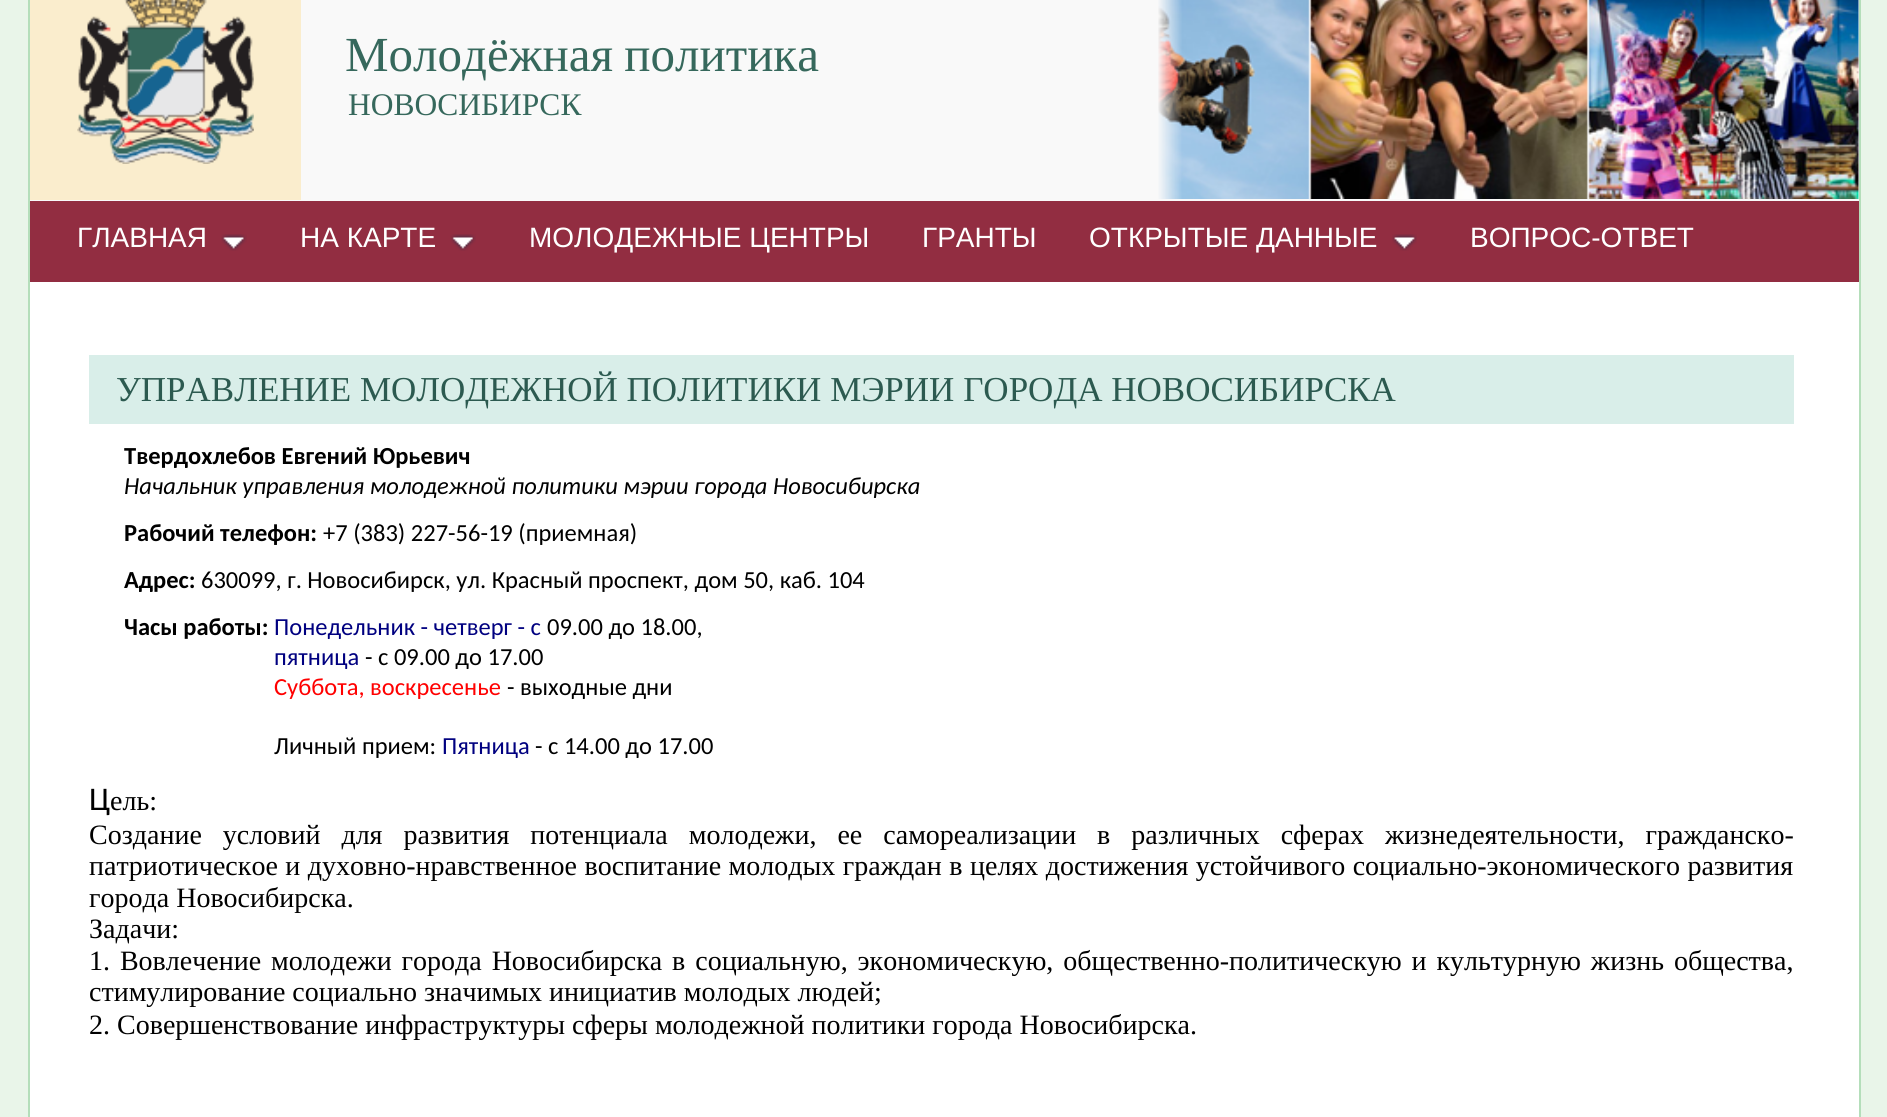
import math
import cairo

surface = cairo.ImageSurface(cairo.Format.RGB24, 1887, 1117)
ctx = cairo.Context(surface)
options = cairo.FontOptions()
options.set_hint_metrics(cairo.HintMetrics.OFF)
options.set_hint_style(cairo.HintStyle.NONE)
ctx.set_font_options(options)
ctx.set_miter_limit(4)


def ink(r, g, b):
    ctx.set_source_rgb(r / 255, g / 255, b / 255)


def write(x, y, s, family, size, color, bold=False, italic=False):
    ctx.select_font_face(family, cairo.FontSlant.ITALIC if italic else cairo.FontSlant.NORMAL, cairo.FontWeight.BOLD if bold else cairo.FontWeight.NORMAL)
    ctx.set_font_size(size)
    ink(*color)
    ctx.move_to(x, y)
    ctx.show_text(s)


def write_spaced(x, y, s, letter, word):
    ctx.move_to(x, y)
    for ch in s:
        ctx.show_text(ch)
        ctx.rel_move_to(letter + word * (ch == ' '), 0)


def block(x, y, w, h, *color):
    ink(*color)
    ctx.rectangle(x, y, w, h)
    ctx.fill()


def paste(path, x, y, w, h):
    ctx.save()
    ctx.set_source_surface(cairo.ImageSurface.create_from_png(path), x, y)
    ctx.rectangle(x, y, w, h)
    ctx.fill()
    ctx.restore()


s1 = dict(family="Liberation Serif", size=31.5, color=(54, 104, 92))
s2 = dict(family="Liberation Sans", size=28, color=(255, 255, 255))
s3 = dict(family="Liberation Serif", size=35, color=(44, 90, 80))
s4 = dict(family="Carlito", size=24.5, color=(0, 0, 0), bold=True)
s5 = dict(family="Carlito", size=24.5, color=(0, 0, 0), italic=True)
s6 = dict(family="Carlito", size=24.5, color=(0, 0, 0))
s7 = dict(family="Carlito", size=24.5, color=(0, 0, 128))
s8 = dict(family="Carlito", size=24.5, color=(255, 0, 0))
s9 = dict(family="Carlito", size=33, color=(0, 0, 0))
s10 = dict(family="Liberation Serif", size=28, color=(0, 0, 0))

ink(233, 245, 233)
ctx.paint()
block(30, 282, 1829, 835, 255, 255, 255)
block(1859, 0, 2, 1117, 180, 222, 186)
block(28, 0, 2, 1117, 180, 222, 186)
block(30, 0, 1829, 201, 249, 249, 249)
block(30, 0, 271, 200, 250, 237, 205)
paste("pic1.png", 77, 0, 177, 164)
paste("pic2.png", 1158, 0, 701, 199)
paste("pic3.png", 1041, 0, 141, 199)
ctx.select_font_face("Liberation Serif")
ctx.set_font_size(49)
ink(54, 104, 92)
write_spaced(345, 71, "Молодёжная политика", 0, -1)
write(348, 115, "НОВОСИБИРСК", **s1)
block(30, 201, 1829, 81, 146, 45, 65)
paste("pic4.png", 221, 234, 26, 17)
write(77, 247, "ГЛАВНАЯ", **s2)
paste("pic5.png", 450, 234, 26, 17)
write(300, 247, "НА КАРТЕ", **s2)
write(529, 247, "МОЛОДЕЖНЫЕ ЦЕНТРЫ", **s2)
write(922, 247, "ГРАНТЫ", **s2)
paste("pic6.png", 1392, 234, 25, 17)
write(1089, 247, "ОТКРЫТЫЕ ДАННЫЕ", **s2)
write(1470, 247, "ВОПРОС-ОТВЕТ", **s2)
block(89, 355, 1705, 69, 217, 238, 233)
write(116, 401, "УПРАВЛЕНИЕ МОЛОДЕЖНОЙ ПОЛИТИКИ МЭРИИ ГОРОДА НОВОСИБИРСКА", **s3)
write(124, 464, "Твердохлебов Евгений Юрьевич", **s4)
write(124, 494, "Начальник управления молодежной политики мэрии города Новосибирска", **s5)
write(124, 541, "Рабочий телефон:", **s4)
write(323, 541, "+7 (383) 227-56-19 (приемная)", **s6)
write(124, 588, "Адрес:", **s4)
write(201, 588, "630099, г. Новосибирск, ул. Красный проспект, дом 50, каб. 104", **s6)
write(124, 635, "Часы работы:", **s4)
write(274, 635, "Понедельник - четверг - с", **s7)
write(547, 635, "09.00 до 18.00,", **s6)
write(274, 665, "пятница", **s7)
write(365, 665, "- с 09.00 до 17.00", **s6)
write(274, 695, "Суббота, воскресенье", **s8)
write(507, 695, "- выходные дни", **s6)
write(274, 754, "Личный прием:", **s6)
write(442, 754, "Пятница", **s7)
write(535, 754, "- с 14.00 до 17.00", **s6)
write(89, 810, "Ц", **s9)
write(110, 810, "ель:", **s10)
write_spaced(89, 844, "Создание условий для развития потенциала молодежи, ее самореализации в различных сферах жизнедеятельности, гражданско-", 0, 14)
write_spaced(89, 875, "патриотическое и духовно-нравственное воспитание молодых граждан в целях достижения устойчивого социально-экономического развития", 0, 0.5)
write(89, 907, "города Новосибирска.", **s10)
write(89, 938, "Задачи:", **s10)
write_spaced(89, 970, "1. Вовлечение молодежи города Новосибирска в социальную, экономическую, общественно-политическую и культурную жизнь общества,", 0, 2.9)
write(89, 1001, "стимулирование социально значимых инициатив молодых людей;", **s10)
write(89, 1034, "2. Совершенствование инфраструктуры сферы молодежной политики города Новосибирска.", **s10)
surface.write_to_png("screenshot.png")
